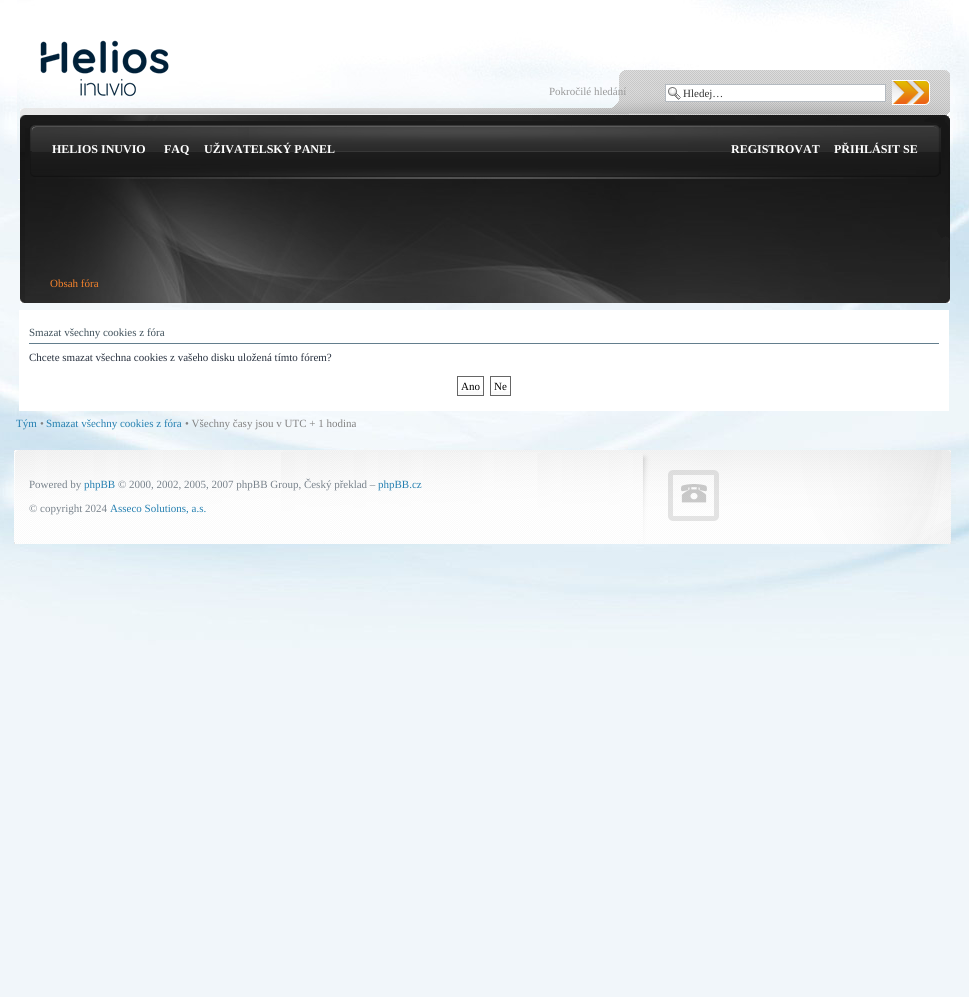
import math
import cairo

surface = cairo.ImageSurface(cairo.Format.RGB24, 969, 997)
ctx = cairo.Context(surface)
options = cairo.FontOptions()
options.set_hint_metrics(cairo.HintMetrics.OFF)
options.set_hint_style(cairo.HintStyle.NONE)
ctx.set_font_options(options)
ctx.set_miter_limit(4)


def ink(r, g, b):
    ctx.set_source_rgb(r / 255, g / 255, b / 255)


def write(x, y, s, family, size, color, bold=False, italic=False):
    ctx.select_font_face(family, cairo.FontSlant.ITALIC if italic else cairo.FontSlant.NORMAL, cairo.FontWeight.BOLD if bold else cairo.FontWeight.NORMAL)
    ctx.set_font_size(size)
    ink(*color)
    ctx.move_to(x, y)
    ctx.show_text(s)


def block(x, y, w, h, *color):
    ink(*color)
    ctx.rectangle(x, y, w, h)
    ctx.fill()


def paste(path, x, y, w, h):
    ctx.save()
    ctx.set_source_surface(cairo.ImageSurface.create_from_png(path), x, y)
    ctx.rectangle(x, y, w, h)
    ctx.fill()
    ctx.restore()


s1 = dict(family="Liberation Serif", size=11, color=(153, 153, 153))
s2 = dict(family="Liberation Serif", size=11, color=(51, 51, 51))
s3 = dict(family="Liberation Serif", size=12, color=(255, 255, 255), bold=True)
s4 = dict(family="Liberation Serif", size=11, color=(245, 130, 43))
s5 = dict(family="Liberation Serif", size=11, color=(64, 81, 91))
s6 = dict(family="Liberation Serif", size=11, color=(40, 49, 63))
s7 = dict(family="Liberation Serif", size=11, color=(0, 0, 0))
s8 = dict(family="Liberation Serif", size=11, color=(37, 128, 177))
s9 = dict(family="Liberation Serif", size=11, color=(130, 130, 130))
s10 = dict(family="Liberation Serif", size=11, color=(121, 131, 140))

ink(255, 255, 255)
ctx.paint()
paste("pic1.png", 0, 603, 969, 394)
paste("pic2.png", 0, 0, 969, 603)
paste("pic3.png", 17, 0, 936, 180)
write(549, 95, "Pokročilé hledání", **s1)
block(666, 85, 219, 16, 255, 255, 255)
paste("pic4.png", 668, 87, 13, 13)
ctx.rectangle(665.5, 84.5, 220, 17)
ink(180, 186, 192)
ctx.set_line_width(1)
ctx.stroke()
write(683, 97, "Hledej…", **s2)
paste("pic5.png", 892, 80, 38, 25)
paste("pic6.png", 40, 40, 129, 57)
write(52, 153, "HELIOS INUVIO", **s3)
write(164, 153, "FAQ", **s3)
write(204, 153, "UŽIVATELSKÝ PANEL", **s3)
write(731, 153, "REGISTROVAT", **s3)
write(834, 153, "PŘIHLÁSIT SE", **s3)
paste("pic7.png", 20, 180, 930, 90)
paste("pic8.png", 20, 270, 930, 33)
write(50, 287, "Obsah fóra", **s4)
block(19, 310, 930, 101, 255, 255, 255)
block(29, 343, 910, 1, 99, 126, 141)
write(29, 336, "Smazat všechny cookies z fóra", **s5)
write(29, 361, "Chcete smazat všechna cookies z vašeho disku uložená tímto fórem?", **s6)
block(457, 391, 27, 4, 250, 250, 250)
ctx.rectangle(457.5, 376.5, 26, 19)
ink(102, 102, 102)
ctx.stroke()
write(461, 390, "Ano", **s7)
block(490, 391, 21, 4, 250, 250, 250)
ctx.rectangle(490.5, 376.5, 20, 19)
ink(102, 102, 102)
ctx.stroke()
write(494, 390, "Ne", **s7)
write(16, 427, "Tým", **s8)
write(40, 427, "•", **s9)
write(46, 427, "Smazat všechny cookies z fóra", **s8)
write(185, 427, "• Všechny časy jsou v UTC + 1 hodina", **s9)
paste("pic9.png", 14, 450, 937, 94)
write(29, 488, "Powered by", **s10)
write(84, 488, "phpBB", **s8)
write(118, 488, "© 2000, 2002, 2005, 2007 phpBB Group, Český překlad –", **s10)
write(378, 488, "phpBB.cz", **s8)
write(29, 512, "© copyright 2024", **s10)
write(110, 512, "Asseco Solutions, a.s.", **s8)
surface.write_to_png("screenshot.png")
